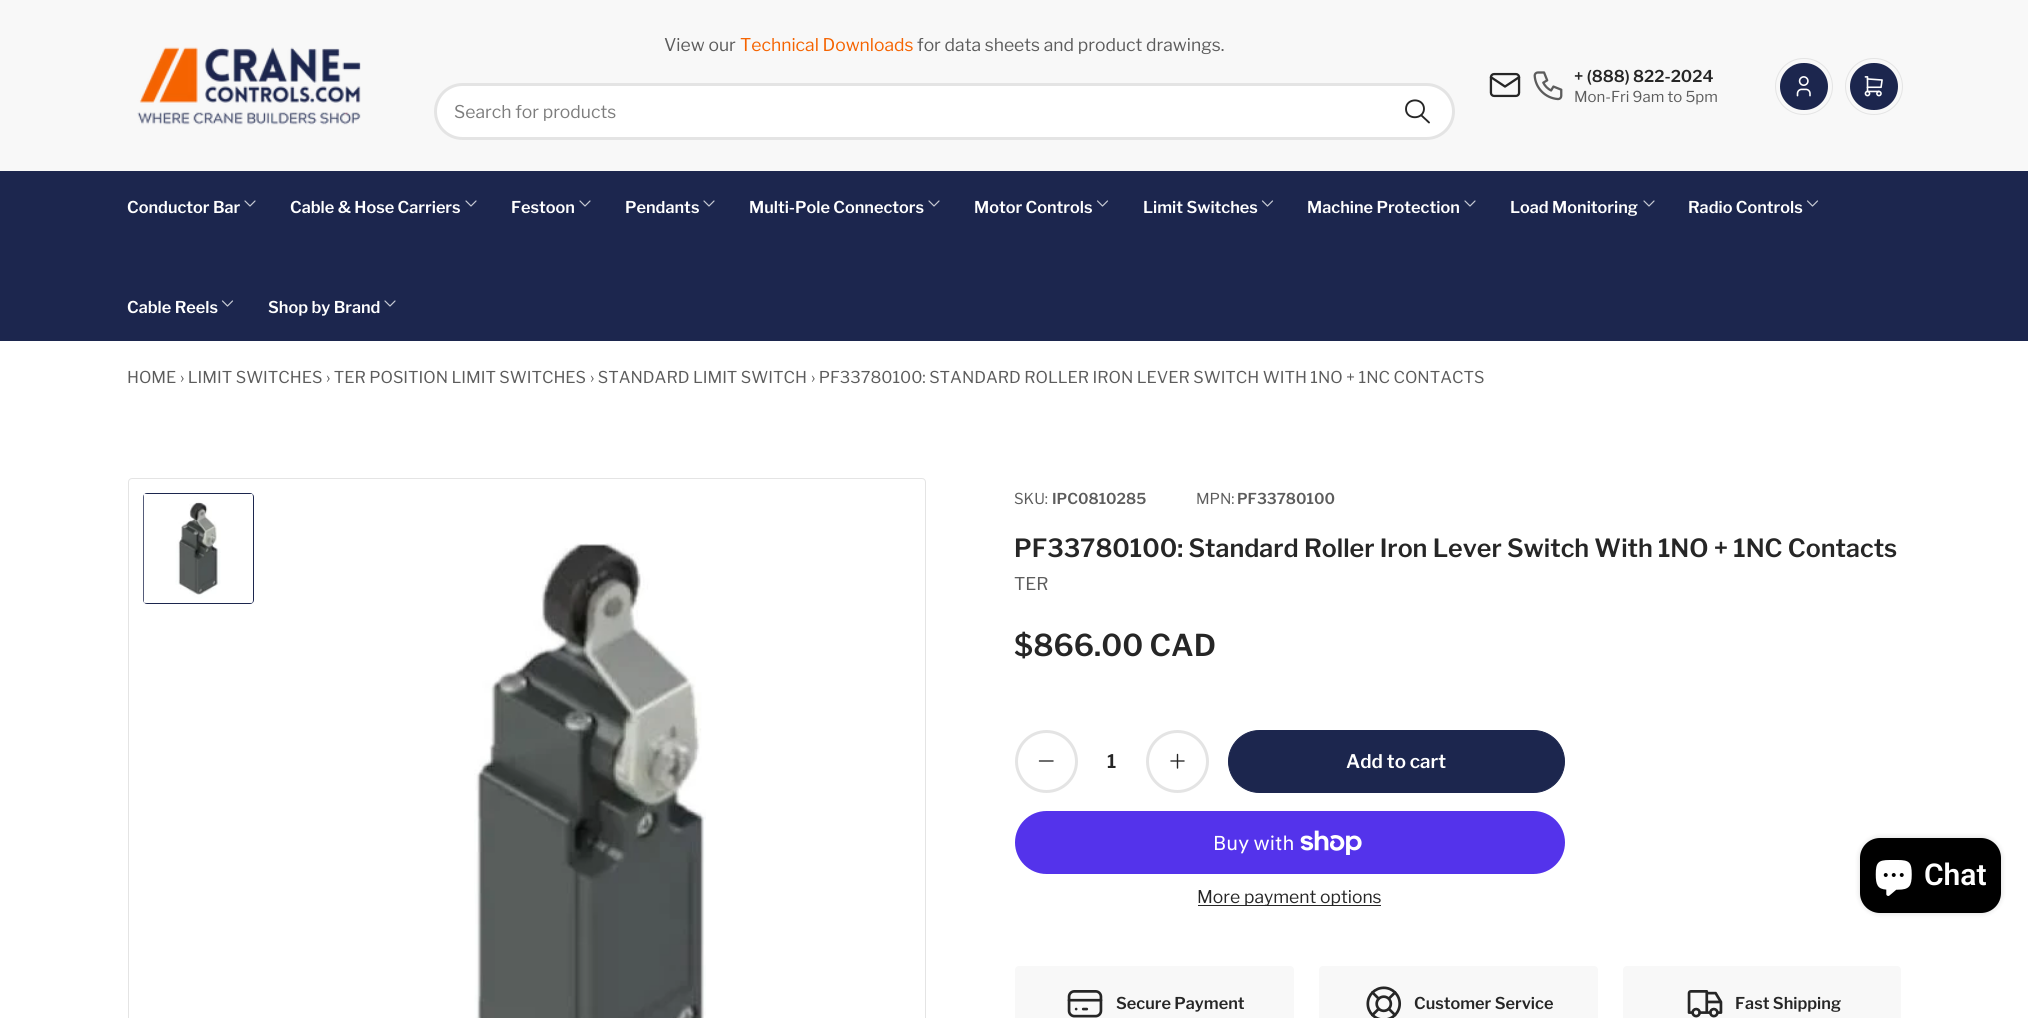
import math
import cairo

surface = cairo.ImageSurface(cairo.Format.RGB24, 2028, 1018)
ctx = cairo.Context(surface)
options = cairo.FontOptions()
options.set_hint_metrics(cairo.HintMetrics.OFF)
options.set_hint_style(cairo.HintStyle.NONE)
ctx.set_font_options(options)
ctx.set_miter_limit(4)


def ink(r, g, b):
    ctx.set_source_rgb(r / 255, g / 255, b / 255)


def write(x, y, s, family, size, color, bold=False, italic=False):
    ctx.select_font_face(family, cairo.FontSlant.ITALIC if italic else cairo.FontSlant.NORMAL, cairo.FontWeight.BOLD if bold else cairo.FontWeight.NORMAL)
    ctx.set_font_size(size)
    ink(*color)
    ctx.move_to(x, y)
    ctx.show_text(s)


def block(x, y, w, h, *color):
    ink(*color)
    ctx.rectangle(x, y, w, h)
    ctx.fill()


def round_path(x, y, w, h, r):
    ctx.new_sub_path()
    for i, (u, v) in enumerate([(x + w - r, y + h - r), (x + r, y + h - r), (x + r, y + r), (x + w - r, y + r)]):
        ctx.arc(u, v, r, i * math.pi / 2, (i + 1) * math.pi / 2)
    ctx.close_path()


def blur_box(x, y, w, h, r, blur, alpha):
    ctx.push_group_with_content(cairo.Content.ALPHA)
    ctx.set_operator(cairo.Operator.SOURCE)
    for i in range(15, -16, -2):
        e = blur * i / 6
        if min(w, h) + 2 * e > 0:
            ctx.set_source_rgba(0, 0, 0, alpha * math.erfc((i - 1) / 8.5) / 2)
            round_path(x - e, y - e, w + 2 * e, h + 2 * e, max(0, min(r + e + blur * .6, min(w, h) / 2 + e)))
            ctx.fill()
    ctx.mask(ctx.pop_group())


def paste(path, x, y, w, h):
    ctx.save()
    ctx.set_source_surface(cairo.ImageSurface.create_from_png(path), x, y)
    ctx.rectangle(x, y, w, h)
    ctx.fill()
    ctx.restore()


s1 = dict(family="Libre Franklin", size=17.5, color=(92, 92, 92))
s2 = dict(family="Libre Franklin", size=17.5, color=(245, 99, 0))
s3 = dict(family="Libre Franklin", size=17.5, color=(125, 125, 125))
s4 = dict(family="Libre Franklin SemiBold", size=16.25, color=(38, 38, 38))
s5 = dict(family="Libre Franklin", size=15, color=(92, 92, 92))
s6 = dict(family="Libre Franklin SemiBold", size=16.25, color=(255, 255, 255))
s7 = dict(family="Libre Franklin", size=16.25, color=(92, 92, 92))
s8 = dict(family="Libre Franklin SemiBold", size=15, color=(92, 92, 92))
s9 = dict(family="Libre Franklin SemiBold", size=25, color=(38, 38, 38))
s10 = dict(family="Libre Franklin SemiBold", size=30, color=(38, 38, 38))
s11 = dict(family="Libre Franklin SemiBold", size=18.75, color=(38, 38, 38))
s12 = dict(family="Libre Franklin SemiBold", size=18.75, color=(255, 255, 255))
s13 = dict(family="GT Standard", size=20, color=(255, 255, 255))
s14 = dict(family="Libre Franklin", size=17.5, color=(38, 38, 38))
s15 = dict(family="Roboto SemiBold", size=30, color=(255, 255, 255))

ink(255, 255, 255)
ctx.paint()
block(0, 0, 2028, 171, 248, 248, 248)
paste("pic1.png", 137, 47, 224, 78)
write(664, 51, "View our", **s1)
write(740, 51, "Technical Downloads", **s2)
write(917, 51, "for data sheets and product drawings.", **s1)
ink(255, 255, 255)
round_path(435.5, 84.5, 1018, 54, 27)
ctx.fill_preserve()
ink(228, 228, 228)
ctx.set_line_width(3)
ctx.stroke()
write(454, 118, "Search for products", **s3)
ctx.new_path()
ctx.move_to(1406, 109)
ctx.curve_to(1406, 120, 1423.5, 120, 1424, 109)
ctx.curve_to(1424, 97.5, 1406, 97.5, 1406, 109)
ctx.move_to(1429, 122.5)
ctx.line_to(1421, 115)
ink(38, 38, 38)
ctx.set_line_width(1.9)
ctx.set_line_cap(cairo.LineCap.ROUND)
ctx.set_line_join(cairo.LineJoin.ROUND)
ctx.stroke()
paste("pic2.png", 1489, 72, 32, 26)
paste("pic3.png", 1533, 71, 30, 30)
write(1574, 82, "+ (888) 822-2024", **s4)
write(1574, 102, "Mon-Fri 9am to 5pm", **s5)
round_path(1775.5, 58.5, 57, 56, 28)
ink(228, 228, 228)
ctx.set_line_width(1)
ctx.set_line_cap(cairo.LineCap.BUTT)
ctx.set_line_join(cairo.LineJoin.MITER)
ctx.stroke()
ink(28, 38, 78)
round_path(1780, 63, 48, 47, 23.5)
ctx.fill()
paste("pic4.png", 1796, 76, 15, 21)
round_path(1845.5, 58.5, 57, 56, 28)
ink(228, 228, 228)
ctx.stroke()
ink(28, 38, 78)
round_path(1850, 63, 48, 47, 23.5)
ctx.fill()
paste("pic5.png", 1864, 76, 19, 21)
block(0, 171, 2028, 170, 28, 38, 78)
write(127, 213, "Conductor Bar", **s6)
ctx.new_path()
ctx.move_to(245, 201)
ctx.line_to(250, 206)
ctx.line_to(255, 201)
ink(198, 201, 211)
ctx.set_line_width(1.2)
ctx.set_line_cap(cairo.LineCap.ROUND)
ctx.set_line_join(cairo.LineJoin.ROUND)
ctx.stroke()
write(290, 213, "Cable & Hose Carriers", **s6)
ctx.new_path()
ctx.move_to(466, 201)
ctx.line_to(471, 206)
ctx.line_to(476, 201)
ink(198, 201, 211)
ctx.stroke()
write(511, 213, "Festoon", **s6)
ctx.new_path()
ctx.move_to(580, 201)
ctx.line_to(585, 206)
ctx.line_to(590, 201)
ink(198, 201, 211)
ctx.stroke()
write(625, 213, "Pendants", **s6)
ctx.new_path()
ctx.move_to(704, 201)
ctx.line_to(709, 206)
ctx.line_to(714, 201)
ink(198, 201, 211)
ctx.stroke()
write(749, 213, "Multi-Pole Connectors", **s6)
ctx.new_path()
ctx.move_to(929, 201)
ctx.line_to(934, 206)
ctx.line_to(939, 201)
ink(198, 201, 211)
ctx.stroke()
write(974, 213, "Motor Controls", **s6)
ctx.new_path()
ctx.move_to(1097.5, 201)
ctx.line_to(1102.5, 206)
ctx.line_to(1107.5, 201)
ink(198, 201, 211)
ctx.stroke()
write(1143, 213, "Limit Switches", **s6)
ctx.new_path()
ctx.move_to(1262.5, 201)
ctx.line_to(1267.5, 206)
ctx.line_to(1272.5, 201)
ink(198, 201, 211)
ctx.stroke()
write(1307, 213, "Machine Protection", **s6)
ctx.new_path()
ctx.move_to(1465, 201)
ctx.line_to(1470, 206)
ctx.line_to(1475, 201)
ink(198, 201, 211)
ctx.stroke()
write(1510, 213, "Load Monitoring", **s6)
ctx.new_path()
ctx.move_to(1644, 201)
ctx.line_to(1649, 206)
ctx.line_to(1654, 201)
ink(198, 201, 211)
ctx.stroke()
write(1688, 213, "Radio Controls", **s6)
ctx.new_path()
ctx.move_to(1807.5, 201)
ctx.line_to(1812.5, 206)
ctx.line_to(1817.5, 201)
ink(198, 201, 211)
ctx.stroke()
write(127, 313, "Cable Reels", **s6)
ctx.new_path()
ctx.move_to(222.5, 301)
ctx.line_to(227.5, 306)
ctx.line_to(232.5, 301)
ink(198, 201, 211)
ctx.stroke()
write(268, 313, "Shop by Brand", **s6)
ctx.new_path()
ctx.move_to(385, 301)
ctx.line_to(390, 306)
ctx.line_to(395, 301)
ink(198, 201, 211)
ctx.stroke()
write(127, 383, "HOME", **s7)
write(180, 383, "› LIMIT SWITCHES", **s7)
write(326, 383, "› TER POSITION LIMIT SWITCHES", **s7)
write(590, 383, "› STANDARD LIMIT SWITCH", **s7)
write(811, 383, "› PF33780100: STANDARD ROLLER IRON LEVER SWITCH WITH 1NO + 1NC CONTACTS", **s7)
round_path(128.5, 478.5, 797, 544, 3.5)
ink(228, 228, 228)
ctx.set_line_width(1)
ctx.set_line_cap(cairo.LineCap.BUTT)
ctx.set_line_join(cairo.LineJoin.MITER)
ctx.stroke()
round_path(143.5, 493.5, 110, 110, 3.5)
ink(28, 38, 78)
ctx.stroke()
paste("pic6.png", 143, 494, 110, 109)
paste("pic7.png", 474, 543, 232, 475)
write(1014, 504, "SKU:", **s5)
write(1052, 504, "IPC0810285", **s8)
write(1196, 504, "MPN:", **s5)
write(1237, 504, "PF33780100", **s8)
write(1014, 557, "PF33780100: Standard Roller Iron Lever Switch With 1NO + 1NC Contacts", **s9)
write(1014, 590, "TER", **s1)
write(1014, 656, "$866.00 CAD", **s10)
ctx.new_path()
ctx.arc(1046.5, 761.5, 30, 0, 2 * math.pi)
ink(228, 228, 228)
ctx.set_line_width(3)
ctx.stroke()
ctx.new_path()
ctx.move_to(1039.5, 761)
ctx.line_to(1053, 761)
ink(38, 38, 38)
ctx.set_line_width(1.4)
ctx.set_line_cap(cairo.LineCap.ROUND)
ctx.set_line_join(cairo.LineJoin.ROUND)
ctx.stroke()
write(1107, 768, "1", **s11)
ctx.new_path()
ctx.arc(1177.5, 761.5, 30, 0, 2 * math.pi)
ink(228, 228, 228)
ctx.set_line_width(3)
ctx.set_line_cap(cairo.LineCap.BUTT)
ctx.set_line_join(cairo.LineJoin.MITER)
ctx.stroke()
ctx.new_path()
ctx.move_to(1177.5, 754.5)
ctx.line_to(1177.5, 768)
ctx.move_to(1171, 761)
ctx.line_to(1184, 761)
ink(38, 38, 38)
ctx.set_line_width(1.4)
ctx.set_line_cap(cairo.LineCap.ROUND)
ctx.set_line_join(cairo.LineJoin.ROUND)
ctx.stroke()
ink(28, 38, 78)
round_path(1228.5, 730.5, 336, 62, 31)
ctx.fill_preserve()
ctx.set_line_width(1)
ctx.set_line_cap(cairo.LineCap.BUTT)
ctx.set_line_join(cairo.LineJoin.MITER)
ctx.stroke()
write(1346, 768, "Add to cart", **s12)
ink(84, 51, 235)
round_path(1015, 811, 550, 63, 31.5)
ctx.fill()
write(1213, 850, "Buy with", **s13)
paste("pic8.png", 1300, 830, 62, 25)
block(1198, 905, 183, 1, 38, 38, 38)
write(1197, 903, "More payment options", **s14)
ink(248, 248, 248)
round_path(1015, 966, 279, 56, 4)
ctx.fill()
paste("pic9.png", 1067, 990, 36, 28)
write(1116, 1009, "Secure Payment", **s4)
ink(248, 248, 248)
round_path(1319, 966, 279, 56, 4)
ctx.fill()
paste("pic10.png", 1366, 986, 36, 32)
write(1414, 1009, "Customer Service", **s4)
ink(248, 248, 248)
round_path(1623, 966, 278, 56, 4)
ctx.fill()
paste("pic11.png", 1687, 990, 36, 28)
write(1735, 1009, "Fast Shipping", **s4)
ink(0, 0, 0)
blur_box(1860, 838, 141, 75, 20, 3, 0.15)
ink(0, 0, 0)
round_path(1860, 838, 141, 75, 20)
ctx.fill()
paste("pic12.png", 1875, 860, 37, 36)
write(1924, 885, "Chat", **s15)
surface.write_to_png("screenshot.png")
